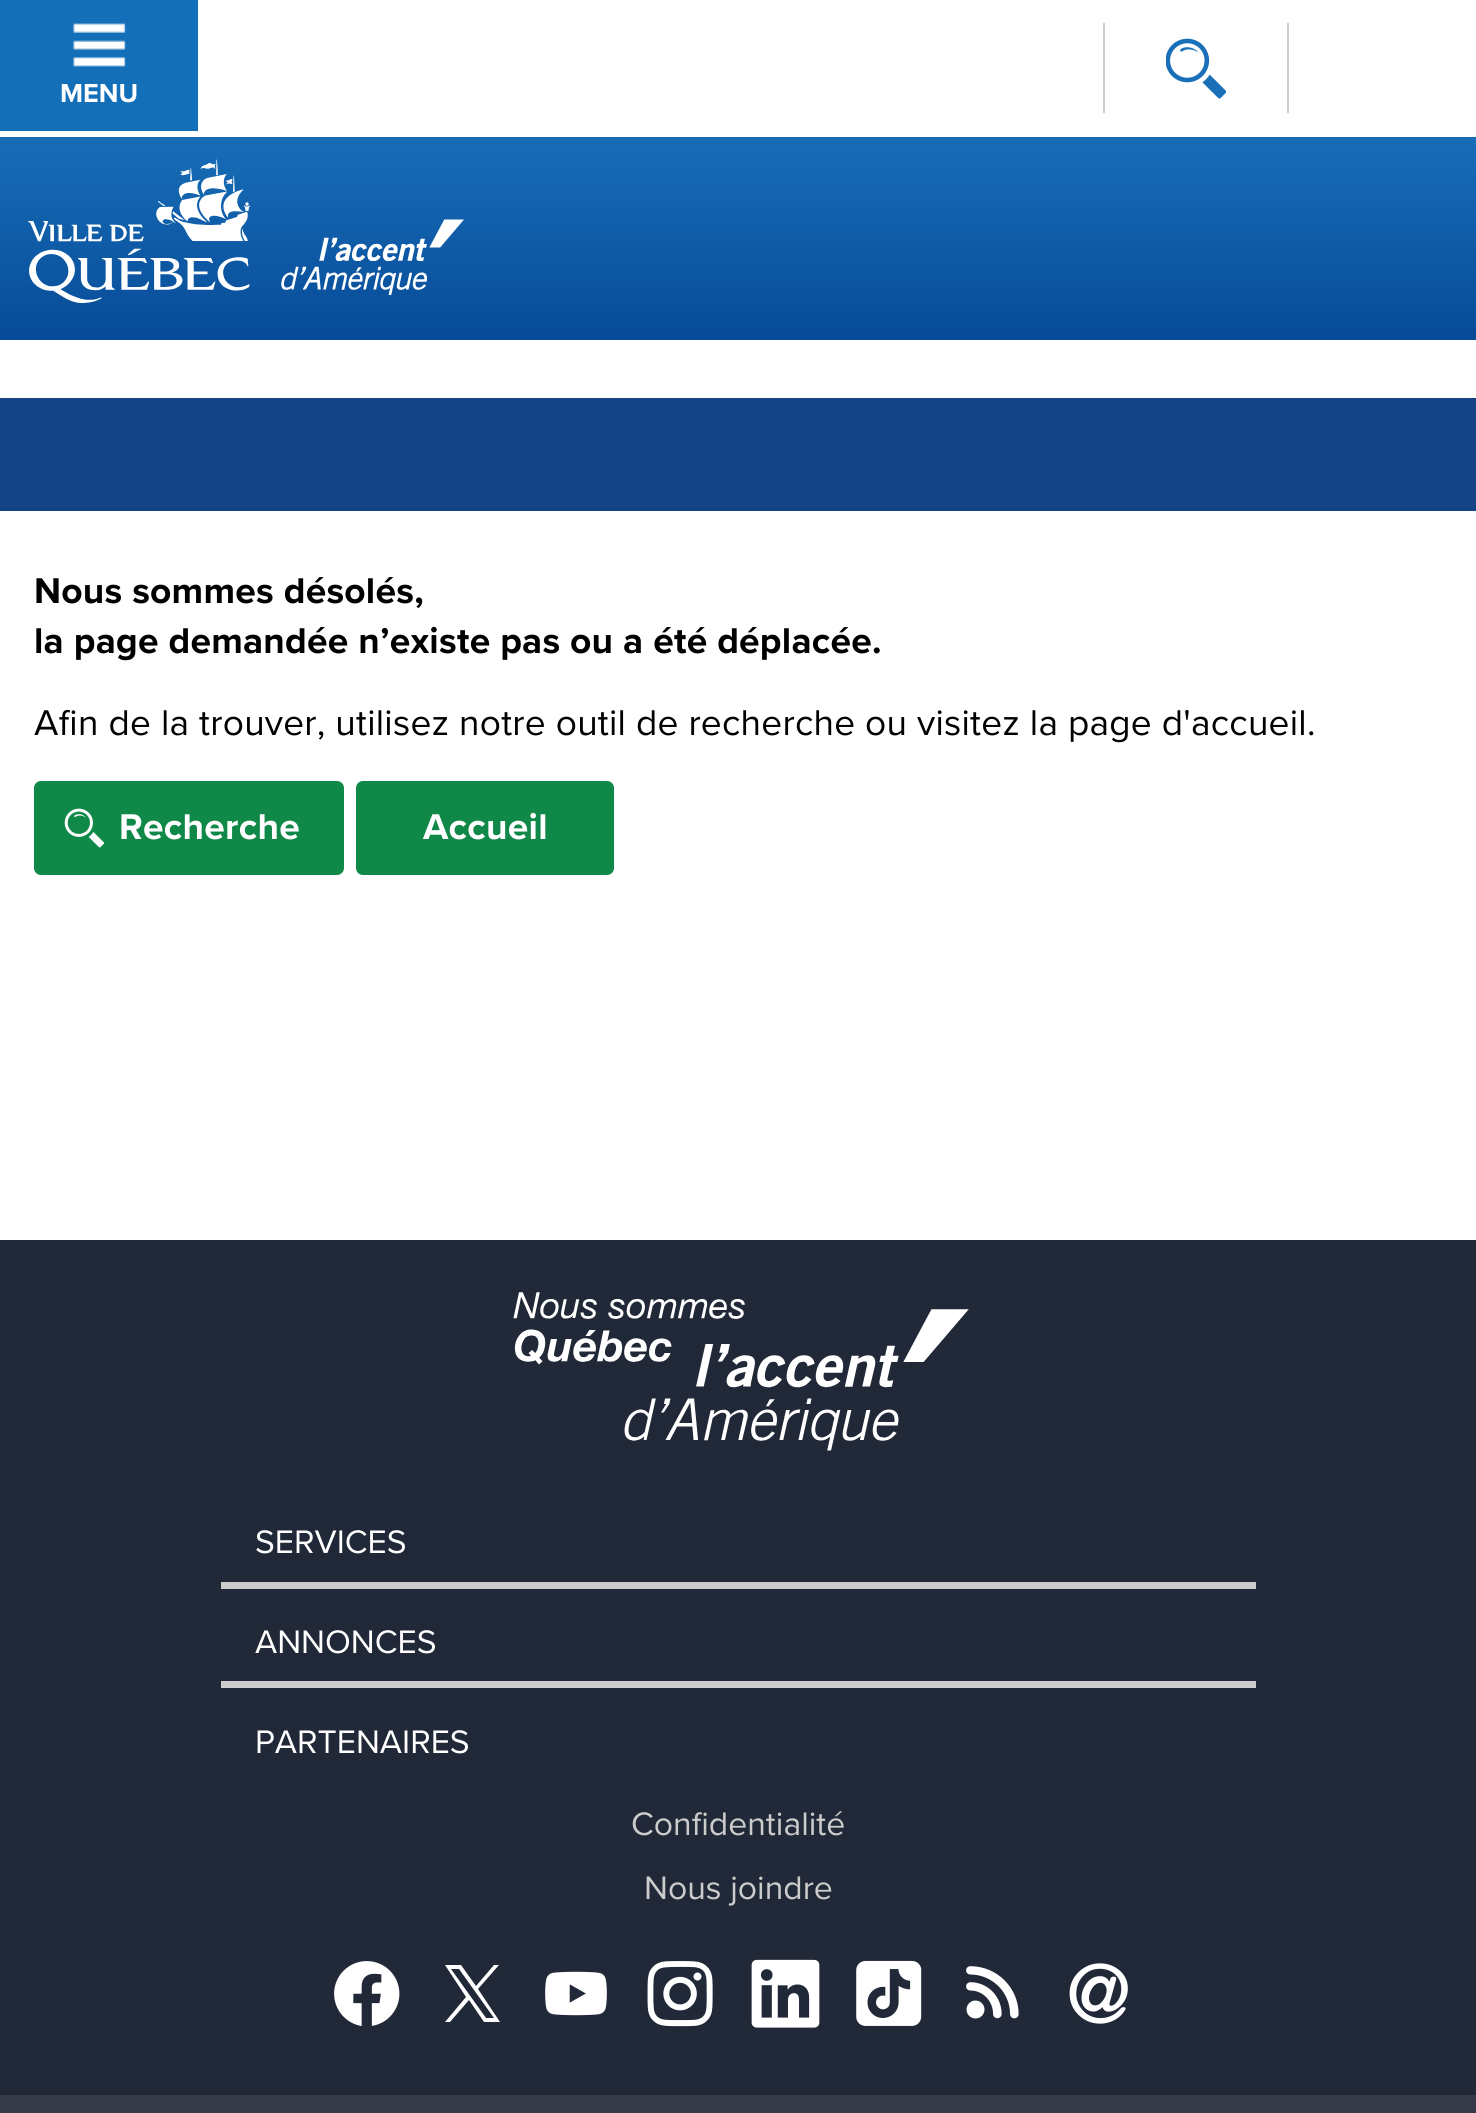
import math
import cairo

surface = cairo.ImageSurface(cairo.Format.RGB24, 1476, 2113)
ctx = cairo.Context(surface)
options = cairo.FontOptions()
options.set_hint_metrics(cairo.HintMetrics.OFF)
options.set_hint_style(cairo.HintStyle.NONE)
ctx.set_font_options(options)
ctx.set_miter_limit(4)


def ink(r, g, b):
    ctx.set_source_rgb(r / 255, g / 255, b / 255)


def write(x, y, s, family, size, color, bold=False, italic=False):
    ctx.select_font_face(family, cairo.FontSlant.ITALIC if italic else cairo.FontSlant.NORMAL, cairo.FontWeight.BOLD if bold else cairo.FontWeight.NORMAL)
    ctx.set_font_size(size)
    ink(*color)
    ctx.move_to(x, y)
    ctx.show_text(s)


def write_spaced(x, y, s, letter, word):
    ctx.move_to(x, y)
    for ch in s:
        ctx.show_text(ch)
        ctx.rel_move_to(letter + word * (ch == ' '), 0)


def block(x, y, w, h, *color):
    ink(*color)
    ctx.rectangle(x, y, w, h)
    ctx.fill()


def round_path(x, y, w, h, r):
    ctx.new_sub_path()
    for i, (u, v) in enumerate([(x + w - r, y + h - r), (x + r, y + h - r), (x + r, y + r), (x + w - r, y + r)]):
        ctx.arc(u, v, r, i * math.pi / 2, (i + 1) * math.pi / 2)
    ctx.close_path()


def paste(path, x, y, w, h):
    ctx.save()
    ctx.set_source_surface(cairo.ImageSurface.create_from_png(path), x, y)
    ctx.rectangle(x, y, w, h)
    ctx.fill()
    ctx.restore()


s1 = dict(family="Proxima Nova", size=27, color=(255, 255, 255), bold=True)
s2 = dict(family="Proxima Nova", size=33.75, color=(255, 255, 255))
s3 = dict(family="Proxima Nova", size=33.75, color=(204, 204, 204))

ink(255, 255, 255)
ctx.paint()
block(0, 0, 198, 131, 19, 111, 184)
paste("pic1.png", 73, 23, 53, 44)
write(60, 102, "MENU", **s1)
block(1103, 23, 2, 90, 205, 203, 203)
paste("pic2.png", 1166, 38, 60, 61)
block(1287, 23, 2, 90, 205, 203, 203)
gradient = cairo.LinearGradient(738, 137, 738, 340)
gradient.add_color_stop_rgba(0.01, 0.094, 0.427, 0.718, 1)
gradient.add_color_stop_rgba(1, 0.027, 0.294, 0.596, 1)
ctx.set_source(gradient)
ctx.rectangle(0, 137, 1476, 203)
ctx.fill()
paste("pic3.png", 28, 159, 436, 144)
block(0, 398, 1476, 113, 20, 68, 135)
ctx.set_font_size(37.1)
ink(0, 0, 0)
write_spaced(34, 603, "Nous sommes désolés,", 0.23, 0)
write_spaced(34, 653, "la page demandée n’existe pas ou a été déplacée.", 0.23, 0)
ctx.select_font_face("Proxima Nova")
write_spaced(34, 735, "Afin de la trouver, utilisez notre outil de recherche ou visitez la page d'accueil.", 0.23, 0)
ink(16, 136, 72)
round_path(34, 781, 310, 94, 7)
ctx.fill()
paste("pic4.png", 64, 808, 40, 40)
ctx.select_font_face("Proxima Nova", cairo.FontSlant.NORMAL, cairo.FontWeight.BOLD)
ink(255, 255, 255)
write_spaced(119, 839, "Recherche", 0.23, 0)
ink(16, 136, 72)
round_path(356, 781, 258, 94, 7)
ctx.fill()
ink(255, 255, 255)
write_spaced(423, 839, "Accueil", 0.23, 0)
block(0, 1240, 1476, 855, 33, 40, 55)
paste("pic5.png", 513, 1292, 456, 159)
block(221, 1582, 1035, 7, 204, 204, 204)
write(255, 1553, "SERVICES", **s2)
block(221, 1681, 1035, 7, 204, 204, 204)
write(255, 1653, "ANNONCES", **s2)
write(255, 1753, "PARTENAIRES", **s2)
write(631, 1835, "Confidentialité", **s3)
write(644, 1899, "Nous joindre", **s3)
paste("pic6.png", 334, 1961, 66, 65)
ink(255, 255, 255)
ctx.new_path()
ctx.move_to(478, 1989)
ctx.line_to(499, 1965)
ctx.line_to(494, 1965)
ctx.line_to(476, 1986)
ctx.line_to(461, 1965)
ctx.line_to(445, 1965)
ctx.line_to(466, 1997)
ctx.line_to(445, 2022)
ctx.line_to(450, 2022)
ctx.line_to(469, 2000)
ctx.line_to(484, 2022)
ctx.line_to(500, 2022)
ctx.close_path()
ctx.move_to(471, 1997)
ctx.line_to(451, 1969)
ctx.line_to(459, 1969)
ctx.line_to(494, 2018)
ctx.line_to(486, 2018)
ctx.close_path()
ctx.fill()
paste("pic7.png", 545, 1971, 62, 45)
paste("pic8.png", 647, 1961, 66, 66)
paste("pic9.png", 751, 1959, 69, 69)
paste("pic10.png", 856, 1960, 66, 66)
paste("pic11.png", 966, 1966, 53, 53)
paste("pic12.png", 1069, 1963, 59, 61)
block(0, 2095, 1476, 18, 53, 59, 73)
surface.write_to_png("screenshot.png")
